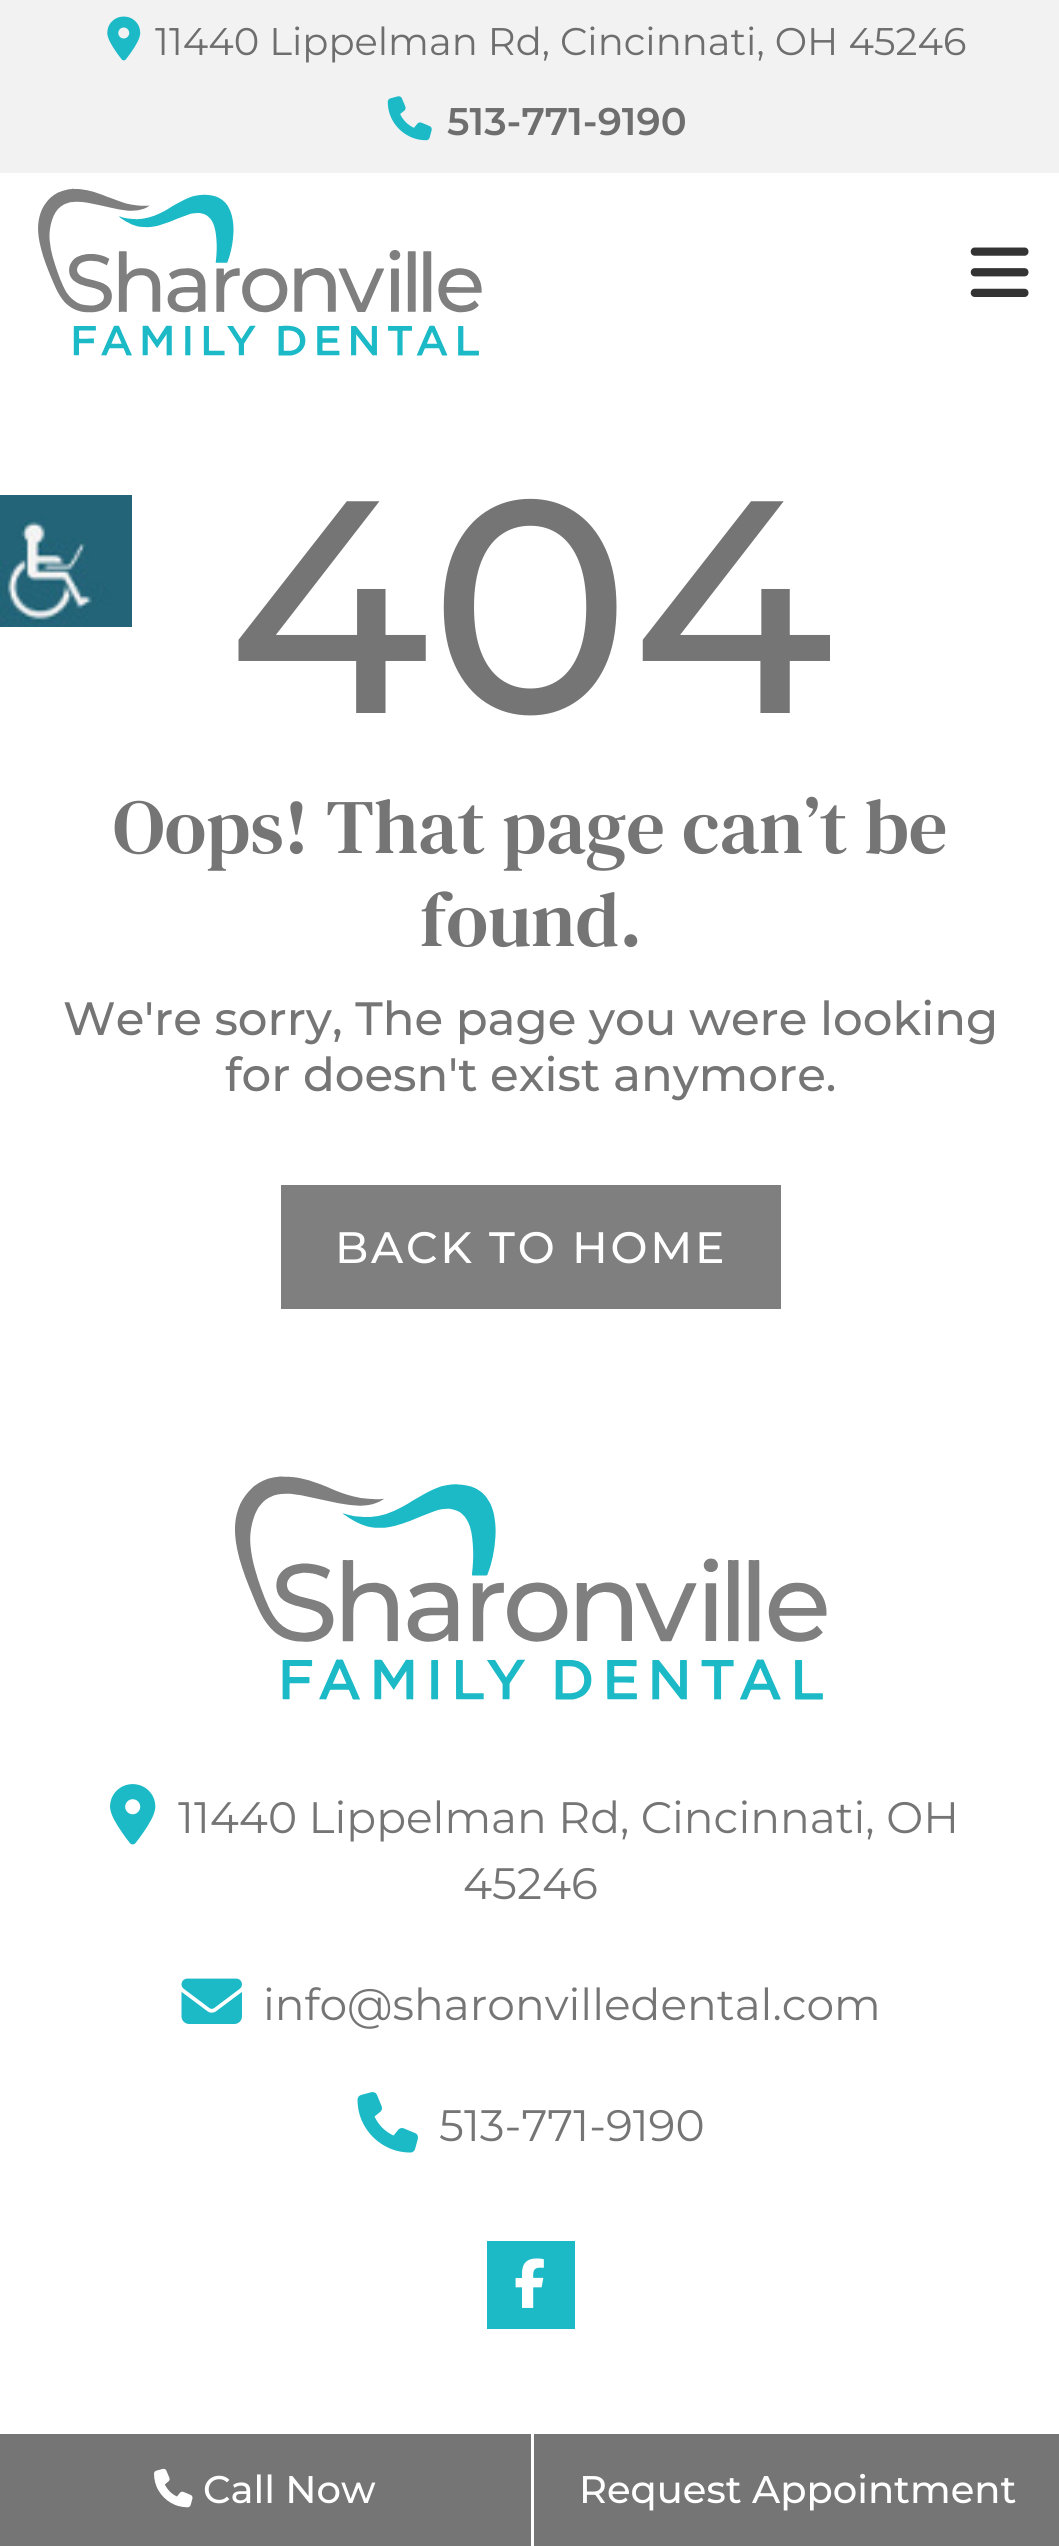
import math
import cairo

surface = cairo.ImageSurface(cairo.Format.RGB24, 1059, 2546)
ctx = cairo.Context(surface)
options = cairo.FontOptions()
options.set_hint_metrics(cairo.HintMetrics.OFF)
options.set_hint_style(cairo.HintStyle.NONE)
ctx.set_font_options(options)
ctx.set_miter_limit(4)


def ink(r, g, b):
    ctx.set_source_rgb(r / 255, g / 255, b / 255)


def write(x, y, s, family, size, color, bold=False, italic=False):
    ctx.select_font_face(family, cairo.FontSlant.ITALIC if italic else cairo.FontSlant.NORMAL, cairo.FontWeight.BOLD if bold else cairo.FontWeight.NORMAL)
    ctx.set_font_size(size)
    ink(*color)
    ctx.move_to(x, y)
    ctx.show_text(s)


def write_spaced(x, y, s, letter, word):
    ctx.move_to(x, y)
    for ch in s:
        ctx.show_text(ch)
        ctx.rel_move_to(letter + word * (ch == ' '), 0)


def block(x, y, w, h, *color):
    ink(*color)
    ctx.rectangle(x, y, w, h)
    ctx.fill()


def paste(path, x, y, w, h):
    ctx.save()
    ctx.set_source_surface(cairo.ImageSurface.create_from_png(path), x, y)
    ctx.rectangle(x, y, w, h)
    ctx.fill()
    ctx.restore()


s1 = dict(family="Montserrat", size=38.5, color=(110, 110, 110))
s2 = dict(family="Montserrat SemiBold", size=38.5, color=(110, 110, 110))
s3 = dict(family="Montserrat Medium", size=302.5, color=(117, 117, 117))
s4 = dict(family="DM Serif Text", size=77, color=(117, 117, 117))
s5 = dict(family="Montserrat Medium", size=46.75, color=(117, 117, 117))
s6 = dict(family="Montserrat", size=44, color=(117, 117, 117))
s7 = dict(family="Montserrat Medium", size=38.5, color=(255, 255, 255))

ink(255, 255, 255)
ctx.paint()
block(0, 0, 1059, 173, 242, 242, 242)
paste("pic1.png", 107, 16, 34, 45)
write(155, 55, "11440 Lippelman Rd, Cincinnati, OH 45246", **s1)
paste("pic2.png", 387, 96, 45, 45)
write(447, 135, "513-771-9190", **s2)
paste("pic3.png", 38, 188, 444, 168)
paste("pic4.png", 970, 247, 59, 50)
write(227, 713, "404", **s3)
write(113, 853, "Oops! That page can’t be", **s4)
write(420, 946, "found.", **s4)
write(63, 1035, "We're sorry, The page you were looking", **s5)
write(225, 1091, "for doesn't exist anymore.", **s5)
block(281, 1185, 500, 124, 127, 127, 127)
ctx.set_font_size(44)
ink(255, 255, 255)
write_spaced(335, 1263, "BACK TO HOME", 2.75, 0)
paste("pic5.png", 235, 1476, 592, 224)
paste("pic6.png", 110, 1784, 46, 61)
write(178, 1833, "11440 Lippelman Rd, Cincinnati, OH", **s6)
write(463, 1899, "45246", **s6)
paste("pic7.png", 181, 1978, 61, 46)
write(263, 2020, "info@sharonvilledental.com", **s6)
paste("pic8.png", 357, 2092, 61, 61)
write(439, 2141, "513-771-9190", **s6)
block(487, 2241, 88, 88, 28, 185, 199)
paste("pic9.png", 515, 2258, 29, 50)
block(0, 2434, 531, 112, 117, 117, 117)
paste("pic10.png", 154, 2468, 39, 40)
write(203, 2503, "Call Now", **s7)
block(534, 2434, 525, 112, 117, 117, 117)
write(579, 2503, "Request Appointment", **s7)
paste("pic11.png", 0, 495, 132, 132)
surface.write_to_png("screenshot.png")
